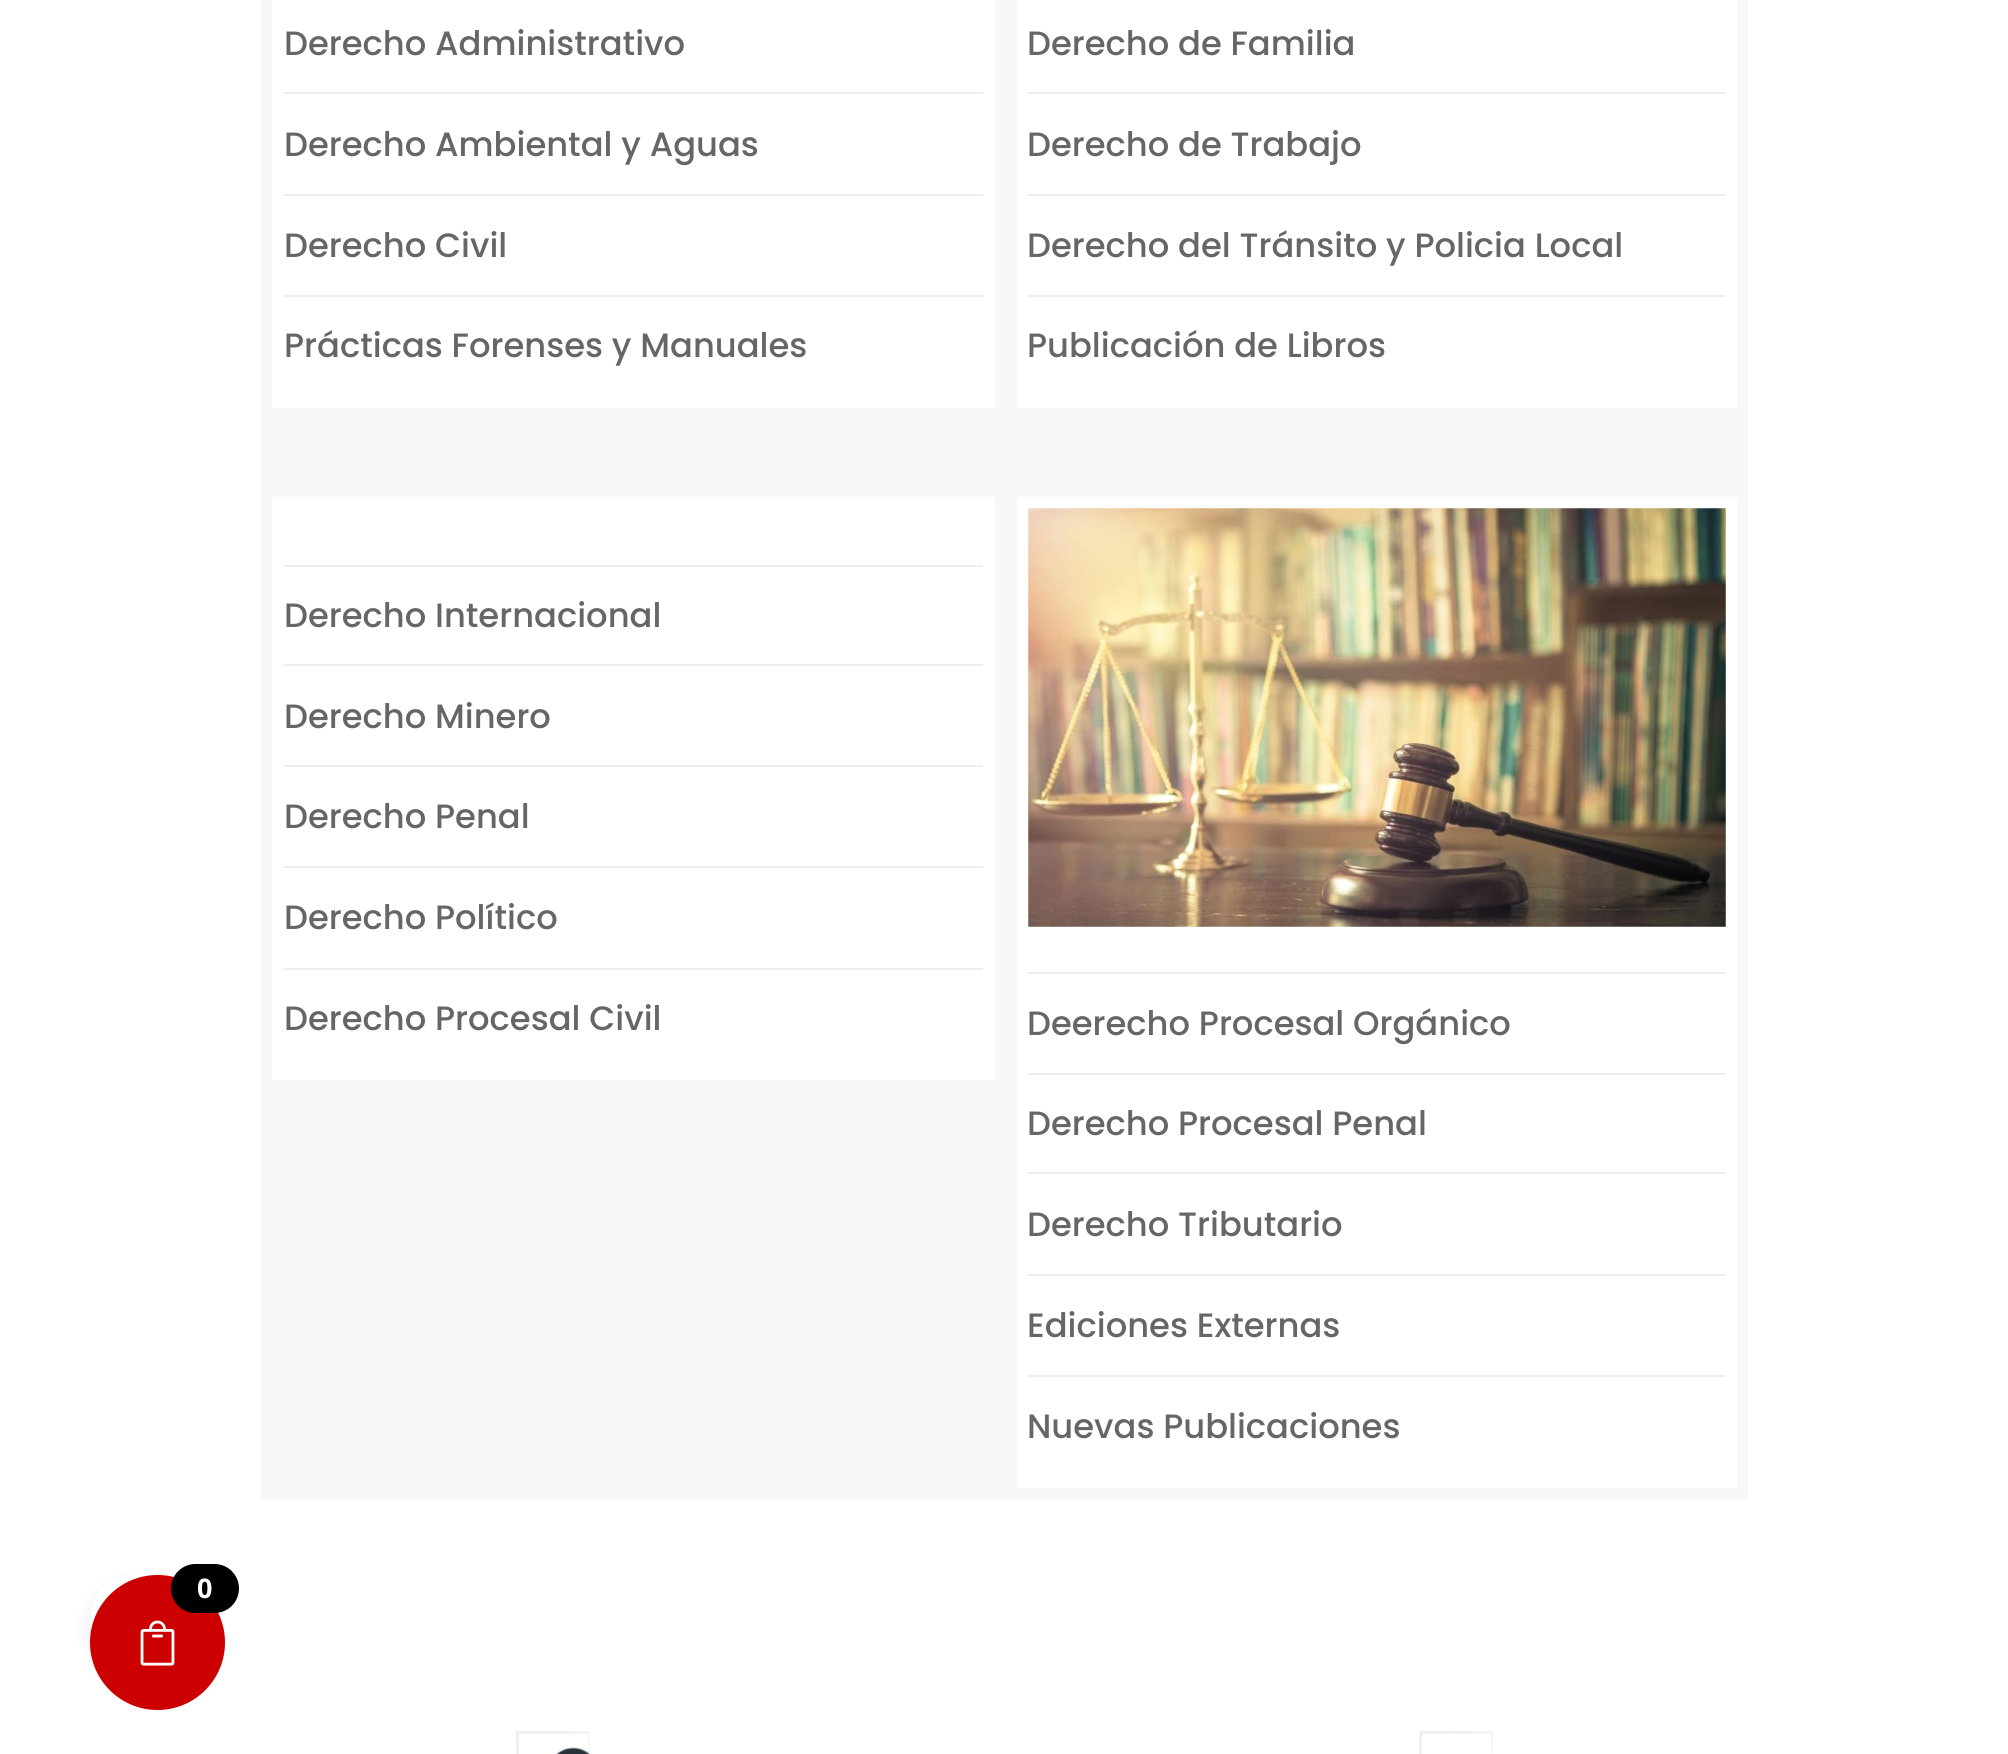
import math
import cairo

surface = cairo.ImageSurface(cairo.Format.RGB24, 2008, 1754)
ctx = cairo.Context(surface)
options = cairo.FontOptions()
options.set_hint_metrics(cairo.HintMetrics.OFF)
options.set_hint_style(cairo.HintStyle.NONE)
ctx.set_font_options(options)
ctx.set_miter_limit(4)


def ink(r, g, b):
    ctx.set_source_rgb(r / 255, g / 255, b / 255)


def write(x, y, s, family, size, color, bold=False, italic=False):
    ctx.select_font_face(family, cairo.FontSlant.ITALIC if italic else cairo.FontSlant.NORMAL, cairo.FontWeight.BOLD if bold else cairo.FontWeight.NORMAL)
    ctx.set_font_size(size)
    ink(*color)
    ctx.move_to(x, y)
    ctx.show_text(s)


def block(x, y, w, h, *color):
    ink(*color)
    ctx.rectangle(x, y, w, h)
    ctx.fill()


def round_path(x, y, w, h, r):
    ctx.new_sub_path()
    for i, (u, v) in enumerate([(x + w - r, y + h - r), (x + r, y + h - r), (x + r, y + r), (x + w - r, y + r)]):
        ctx.arc(u, v, r, i * math.pi / 2, (i + 1) * math.pi / 2)
    ctx.close_path()


def blur_box(x, y, w, h, r, blur, alpha):
    ctx.push_group_with_content(cairo.Content.ALPHA)
    ctx.set_operator(cairo.Operator.SOURCE)
    for i in range(15, -16, -2):
        e = blur * i / 6
        if min(w, h) + 2 * e > 0:
            ctx.set_source_rgba(0, 0, 0, alpha * math.erfc((i - 1) / 8.5) / 2)
            round_path(x - e, y - e, w + 2 * e, h + 2 * e, max(0, min(r + e + blur * .6, min(w, h) / 2 + e)))
            ctx.fill()
    ctx.mask(ctx.pop_group())


def paste(path, x, y, w, h):
    ctx.save()
    ctx.set_source_surface(cairo.ImageSurface.create_from_png(path), x, y)
    ctx.rectangle(x, y, w, h)
    ctx.fill()
    ctx.restore()


s1 = dict(family="Poppins Medium", size=33.75, color=(102, 102, 102))
s2 = dict(family="Open Sans", size=27, color=(255, 255, 255), bold=True)

ink(255, 255, 255)
ctx.paint()
block(261, 419, 1487, 1080, 248, 248, 249)
ctx.rectangle(266.5, -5.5, 734, 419)
ctx.set_line_width(11)
ctx.stroke()
write(284, 55, "Derecho Administrativo", **s1)
block(284, 92, 699, 2, 238, 238, 238)
write(284, 156, "Derecho Ambiental y Aguas", **s1)
block(284, 194, 699, 2, 238, 238, 238)
write(284, 257, "Derecho Civil", **s1)
block(284, 295, 699, 2, 238, 238, 238)
write(284, 357, "Prácticas Forenses y Manuales", **s1)
ctx.rectangle(1011.5, -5.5, 731, 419)
ink(248, 248, 249)
ctx.stroke()
write(1027, 55, "Derecho de Familia", **s1)
block(1028, 92, 698, 2, 238, 238, 238)
write(1027, 156, "Derecho de Trabajo", **s1)
block(1028, 194, 698, 2, 238, 238, 238)
write(1027, 257, "Derecho del Tránsito y Policia Local", **s1)
block(1028, 295, 698, 2, 238, 238, 238)
write(1027, 357, "Publicación de Libros", **s1)
block(272, 497, 723, 583, 255, 255, 255)
block(284, 565, 699, 2, 238, 238, 238)
write(284, 627, "Derecho Internacional", **s1)
block(284, 664, 699, 2, 238, 238, 238)
write(284, 728, "Derecho Minero", **s1)
block(284, 765, 699, 2, 238, 238, 238)
write(284, 828, "Derecho Penal", **s1)
block(284, 866, 699, 2, 238, 238, 238)
write(284, 929, "Derecho Político", **s1)
block(284, 968, 699, 2, 238, 238, 238)
write(284, 1030, "Derecho Procesal Civil", **s1)
block(1017, 497, 720, 991, 255, 255, 255)
paste("pic1.png", 1028, 508, 698, 419)
block(1028, 972, 698, 2, 238, 238, 238)
write(1027, 1035, "Deerecho Procesal Orgánico", **s1)
block(1028, 1073, 698, 2, 238, 238, 238)
write(1027, 1135, "Derecho Procesal Penal", **s1)
block(1028, 1172, 698, 2, 238, 238, 238)
write(1027, 1236, "Derecho Tributario", **s1)
block(1028, 1274, 698, 2, 238, 238, 238)
write(1027, 1337, "Ediciones Externas", **s1)
block(1028, 1375, 698, 2, 238, 238, 238)
write(1027, 1438, "Nuevas Publicaciones", **s1)
paste("pic2.png", 515, 1731, 978, 23)
ctx.save()
ctx.set_fill_rule(cairo.FillRule.EVEN_ODD)
ctx.new_path()
ctx.move_to(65, 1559)
ctx.line_to(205, 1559)
ctx.line_to(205, 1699)
ctx.line_to(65, 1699)
ctx.close_path()
ctx.move_to(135, 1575)
ctx.curve_to(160, 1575, 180, 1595, 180, 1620)
ctx.curve_to(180, 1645, 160, 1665, 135, 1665)
ctx.curve_to(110, 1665, 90, 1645, 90, 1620)
ctx.curve_to(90, 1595, 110, 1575, 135, 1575)
ctx.close_path()
ctx.clip()
ink(0, 0, 0)
blur_box(90, 1584, 90, 90, 45, 8, 0.1)
ctx.restore()
ink(204, 0, 0)
ctx.arc(157.5, 1642.5, 67.5, 0, 2 * math.pi)
ctx.fill()
ink(0, 0, 0)
round_path(171, 1564, 68, 49, 24.5)
ctx.fill()
write(197, 1598, "0", **s2)
paste("pic3.png", 140, 1620, 35, 46)
surface.write_to_png("screenshot.png")
